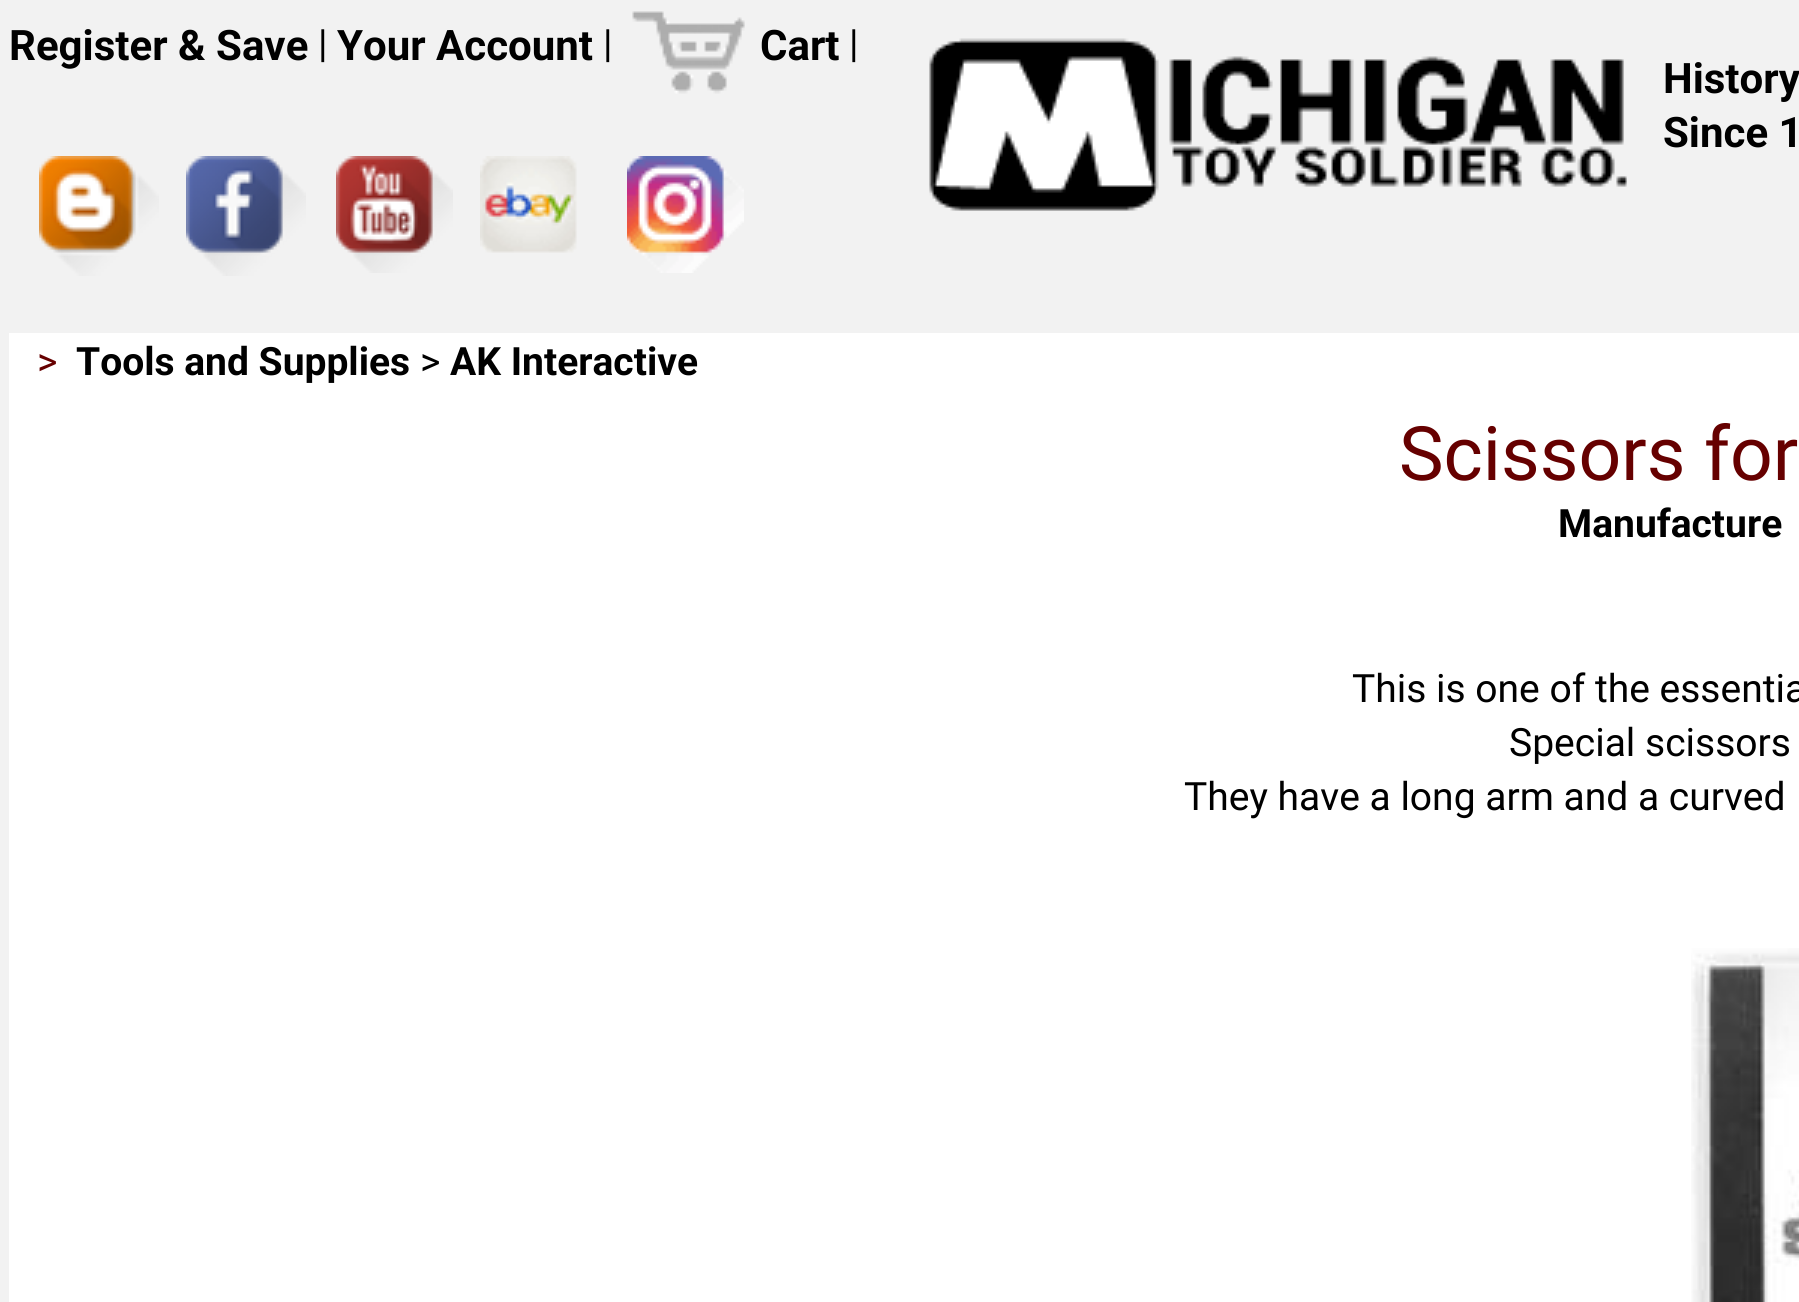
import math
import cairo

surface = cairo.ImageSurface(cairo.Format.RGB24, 1799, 1302)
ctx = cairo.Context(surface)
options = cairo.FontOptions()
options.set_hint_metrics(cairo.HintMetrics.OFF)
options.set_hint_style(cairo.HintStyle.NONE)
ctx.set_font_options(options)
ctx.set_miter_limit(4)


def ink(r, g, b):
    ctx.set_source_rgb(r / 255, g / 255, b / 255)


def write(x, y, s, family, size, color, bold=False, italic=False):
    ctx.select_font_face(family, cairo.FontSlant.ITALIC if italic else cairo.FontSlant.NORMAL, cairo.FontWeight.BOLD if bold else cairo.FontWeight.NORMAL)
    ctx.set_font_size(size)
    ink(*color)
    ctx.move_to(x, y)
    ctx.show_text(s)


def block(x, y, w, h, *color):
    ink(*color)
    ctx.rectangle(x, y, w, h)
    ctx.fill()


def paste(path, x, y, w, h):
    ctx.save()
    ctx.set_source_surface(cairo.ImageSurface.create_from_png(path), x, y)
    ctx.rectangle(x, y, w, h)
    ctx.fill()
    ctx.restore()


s1 = dict(family="Roboto", size=42, color=(0, 0, 0), bold=True)
s2 = dict(family="Roboto", size=39, color=(0, 0, 0))
s3 = dict(family="Roboto", size=39, color=(102, 0, 0))
s4 = dict(family="Roboto", size=39, color=(0, 0, 0), bold=True)
s5 = dict(family="Roboto", size=75, color=(102, 0, 0))

ink(242, 242, 242)
ctx.paint()
block(9, 333, 1790, 969, 255, 255, 255)
write(9, 60, "Register & Save", **s1)
write(318, 57, "|", **s2)
write(337, 60, "Your Account", **s1)
write(603, 57, "|", **s2)
paste("pic1.png", 632, 11, 113, 83)
write(760, 60, "Cart", **s1)
write(849, 57, "|", **s2)
paste("pic2.png", 39, 156, 120, 120)
paste("pic3.png", 186, 156, 120, 120)
paste("pic4.png", 336, 156, 117, 117)
paste("pic5.png", 480, 156, 97, 97)
paste("pic6.png", 627, 156, 117, 117)
paste("pic7.png", 929, 38, 698, 173)
write(1663, 93, "History", **s1)
write(1663, 147, "Since 1", **s1)
write(37, 375, ">", **s3)
write(76, 375, "Tools and Supplies", **s4)
write(420, 375, ">", **s2)
write(450, 375, "AK Interactive", **s4)
write(1399, 480, "Scissors for", **s5)
write(1558, 537, "Manufacture", **s4)
write(1352, 702, "This is one of the essentia", **s2)
write(1509, 756, "Special scissors", **s2)
write(1184, 810, "They have a long arm and a curved", **s2)
paste("pic8.png", 1691, 948, 108, 354)
surface.write_to_png("screenshot.png")
